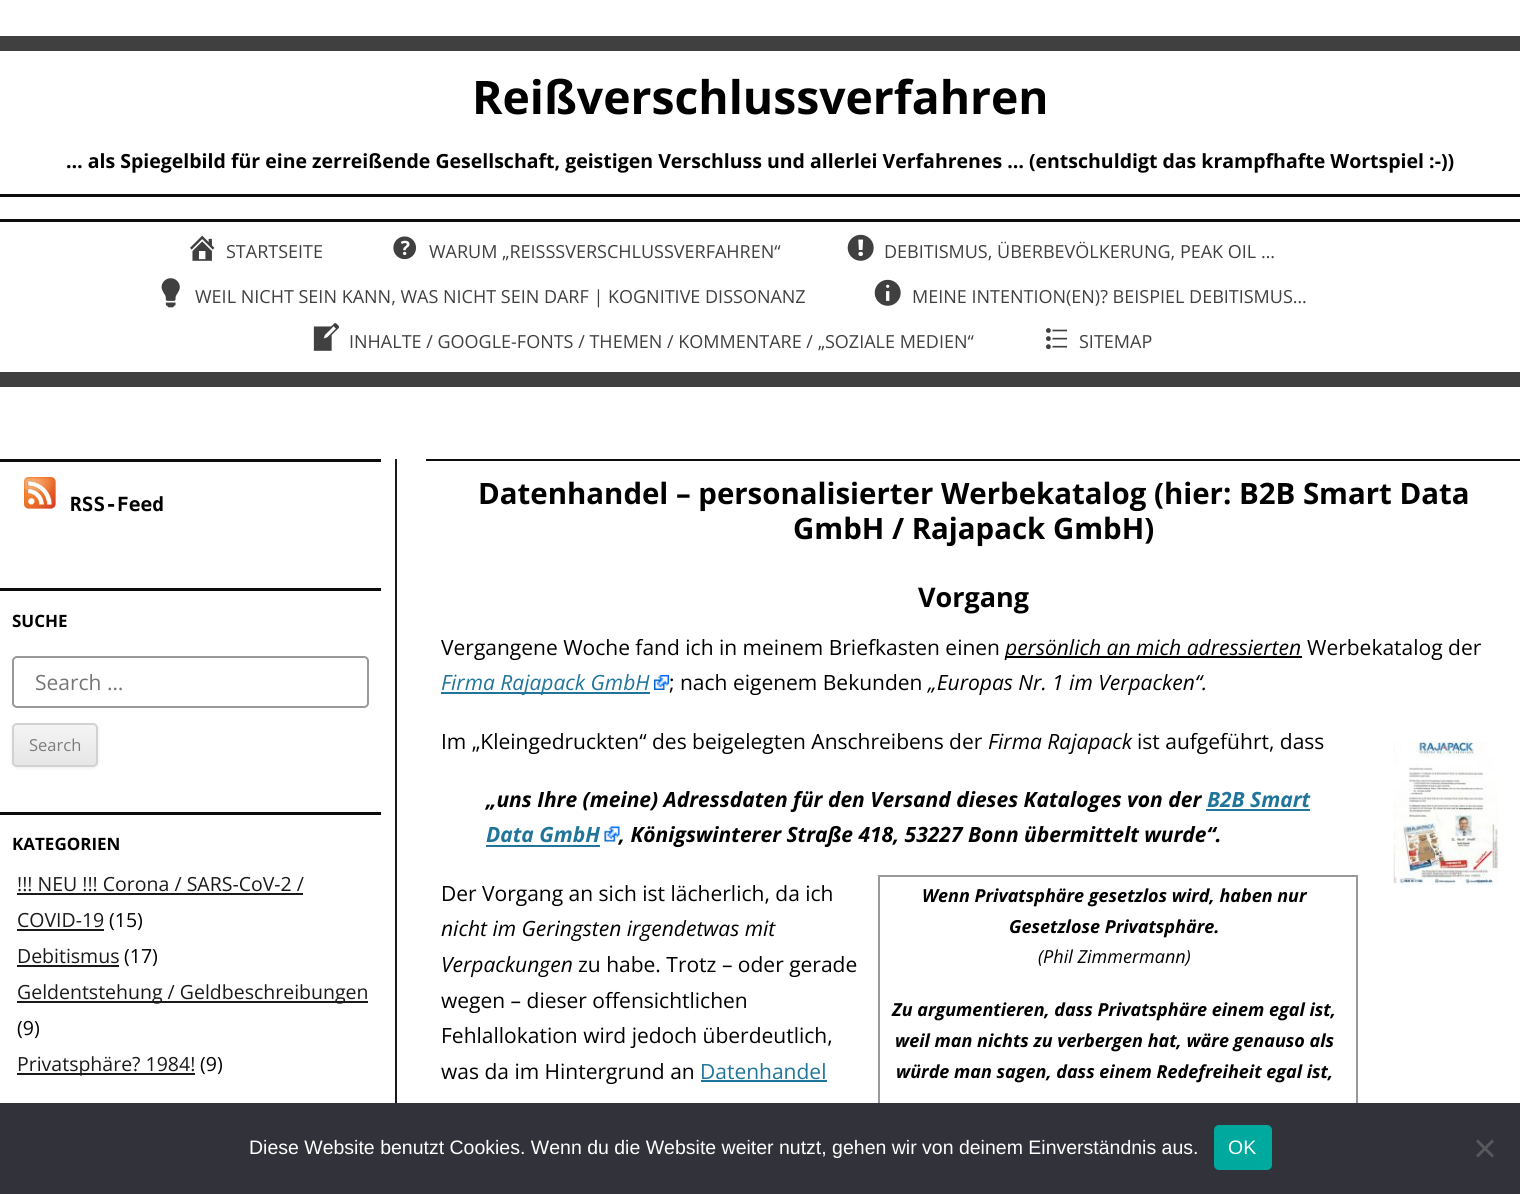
import math
import cairo

surface = cairo.ImageSurface(cairo.Format.RGB24, 1520, 1194)
ctx = cairo.Context(surface)
options = cairo.FontOptions()
options.set_hint_metrics(cairo.HintMetrics.OFF)
options.set_hint_style(cairo.HintStyle.NONE)
ctx.set_font_options(options)
ctx.set_miter_limit(4)


def ink(r, g, b):
    ctx.set_source_rgb(r / 255, g / 255, b / 255)


def write(x, y, s, family, size, color, bold=False, italic=False):
    ctx.select_font_face(family, cairo.FontSlant.ITALIC if italic else cairo.FontSlant.NORMAL, cairo.FontWeight.BOLD if bold else cairo.FontWeight.NORMAL)
    ctx.set_font_size(size)
    ink(*color)
    ctx.move_to(x, y)
    ctx.show_text(s)


def block(x, y, w, h, *color):
    ink(*color)
    ctx.rectangle(x, y, w, h)
    ctx.fill()


def round_path(x, y, w, h, r):
    ctx.new_sub_path()
    for i, (u, v) in enumerate([(x + w - r, y + h - r), (x + r, y + h - r), (x + r, y + r), (x + w - r, y + r)]):
        ctx.arc(u, v, r, i * math.pi / 2, (i + 1) * math.pi / 2)
    ctx.close_path()


def blur_box(x, y, w, h, r, blur, alpha):
    ctx.push_group_with_content(cairo.Content.ALPHA)
    ctx.set_operator(cairo.Operator.SOURCE)
    for i in range(15, -16, -2):
        e = blur * i / 6
        if min(w, h) + 2 * e > 0:
            ctx.set_source_rgba(0, 0, 0, alpha * math.erfc((i - 1) / 8.5) / 2)
            round_path(x - e, y - e, w + 2 * e, h + 2 * e, max(0, min(r + e + blur * .6, min(w, h) / 2 + e)))
            ctx.fill()
    ctx.mask(ctx.pop_group())


def paste(path, x, y, w, h):
    ctx.save()
    ctx.set_source_surface(cairo.ImageSurface.create_from_png(path), x, y)
    ctx.rectangle(x, y, w, h)
    ctx.fill()
    ctx.restore()


s1 = dict(family="Open Sans", size=46.25, color=(0, 0, 0), bold=True)
s2 = dict(family="Open Sans", size=19.5, color=(0, 0, 0), bold=True)
s3 = dict(family="Open Sans", size=18, color=(64, 64, 64))
s4 = dict(family="DejaVu Sans Mono", size=19.5, color=(0, 0, 0), bold=True)
s5 = dict(family="Open Sans", size=17, color=(0, 0, 0), bold=True)
s6 = dict(family="Open Sans", size=21, color=(117, 117, 117))
s7 = dict(family="Open Sans", size=16.5, color=(124, 124, 124))
s8 = dict(family="Open Sans", size=19.5, color=(26, 26, 26))
s9 = dict(family="Open Sans", size=19.5, color=(0, 0, 0))
s10 = dict(family="Open Sans", size=29.4, color=(0, 0, 0), bold=True)
s11 = dict(family="Open Sans", size=27, color=(0, 0, 0), bold=True)
s12 = dict(family="Open Sans", size=21, color=(0, 0, 0))
s13 = dict(family="Open Sans", size=21, color=(0, 0, 0), italic=True)
s14 = dict(family="Open Sans", size=21, color=(33, 117, 155), italic=True)
s15 = dict(family="Open Sans", size=21, color=(0, 0, 0), bold=True, italic=True)
s16 = dict(family="Open Sans", size=21, color=(33, 117, 155), bold=True, italic=True)
s17 = dict(family="Open Sans", size=21, color=(33, 117, 155))
s18 = dict(family="Open Sans", size=18, color=(0, 0, 0), bold=True, italic=True)
s19 = dict(family="Open Sans", size=18, color=(0, 0, 0), italic=True)
s20 = dict(family="Liberation Sans", size=19.5, color=(255, 255, 255))

ink(255, 255, 255)
ctx.paint()
block(0, 36, 1520, 15, 64, 64, 64)
write(472, 114, "Reißverschlussverfahren", **s1)
block(0, 194, 1520, 3, 13, 13, 13)
write(66, 168, "… als Spiegelbild für eine zerreißende Gesellschaft, geistigen Verschluss und allerlei Verfahrenes … (entschuldigt das krampfhafte Wortspiel :-))", **s2)
block(0, 219, 1520, 3, 13, 13, 13)
block(0, 372, 1520, 15, 64, 64, 64)
paste("pic1.png", 190, 235, 25, 26)
write(226, 258, "STARTSEITE", **s3)
paste("pic2.png", 393, 236, 23, 24)
write(429, 258, "WARUM „REISSSVERSCHLUSSVERFAHREN“", **s3)
paste("pic3.png", 847, 234, 27, 27)
write(884, 258, "DEBITISMUS, ÜBERBEVÖLKERUNG, PEAK OIL …", **s3)
paste("pic4.png", 161, 278, 19, 30)
write(195, 303, "WEIL NICHT SEIN KANN, WAS NICHT SEIN DARF | KOGNITIVE DISSONANZ", **s3)
paste("pic5.png", 874, 279, 27, 27)
write(912, 303, "MEINE INTENTION(EN)? BEISPIEL DEBITISMUS…", **s3)
paste("pic6.png", 313, 323, 27, 28)
write(349, 348, "INHALTE / GOOGLE-FONTS / THEMEN / KOMMENTARE / „SOZIALE MEDIEN“", **s3)
paste("pic7.png", 1046, 328, 22, 22)
write(1079, 348, "SITEMAP", **s3)
block(0, 459, 381, 3, 13, 13, 13)
paste("pic8.png", 24, 477, 32, 32)
write(70, 511, "RSS-Feed", **s4)
block(0, 588, 381, 3, 13, 13, 13)
write(12, 627, "SUCHE", **s5)
round_path(13, 657, 355, 50, 4)
ink(153, 153, 153)
ctx.stroke()
write(35, 690, "Search …", **s6)
ink(64, 64, 64)
blur_box(12, 725, 86, 43, 5, 1.5, 0.1)
ctx.save()
round_path(12, 723, 86, 44, 5)
ctx.clip()
gradient = cairo.LinearGradient(55, 725, 55, 765)
gradient.add_color_stop_rgba(0, 0.957, 0.957, 0.957, 1)
gradient.add_color_stop_rgba(1, 0.902, 0.902, 0.902, 1)
ctx.set_source(gradient)
ctx.rectangle(12, 725, 86, 40)
ctx.fill()
ctx.restore()
round_path(13, 724, 84, 42, 4)
ink(210, 210, 210)
ctx.stroke()
write(29, 751, "Search", **s7)
block(0, 812, 381, 3, 13, 13, 13)
write(12, 850, "KATEGORIEN", **s5)
write(17, 891, "!!! NEU !!! Corona / SARS-CoV-2 /", **s8)
block(17, 893, 286, 2, 26, 26, 26)
write(17, 927, "COVID-19", **s8)
block(17, 929, 87, 2, 26, 26, 26)
write(109, 927, "(15)", **s9)
write(17, 963, "Debitismus", **s8)
block(17, 965, 102, 2, 26, 26, 26)
write(124, 963, "(17)", **s9)
block(17, 1001, 351, 2, 26, 26, 26)
write(17, 999, "Geldentstehung / Geldbeschreibungen", **s8)
write(17, 1035, "(9)", **s9)
block(17, 1073, 178, 2, 26, 26, 26)
write(17, 1071, "Privatsphäre? 1984!", **s8)
write(200, 1071, "(9)", **s9)
block(395, 459, 2, 644, 26, 26, 26)
block(426, 459, 1094, 2, 13, 13, 13)
write(478, 504, "Datenhandel – personalisierter Werbekatalog (hier: B2B Smart Data", **s10)
write(793, 539, "GmbH / Rajapack GmbH)", **s10)
write(918, 607, "Vorgang", **s11)
write(441, 655, "Vergangene Woche fand ich in meinem Briefkasten einen", **s12)
block(1005, 656, 297, 2, 0, 0, 0)
write(1005, 655, "persönlich an mich adressierten", **s13)
write(1307, 655, "Werbekatalog der", **s12)
block(441, 692, 209, 2, 33, 117, 155)
write(441, 690, "Firma Rajapack GmbH", **s14)
paste("pic9.png", 654, 675, 15, 15)
write(669, 690, "; nach eigenem Bekunden", **s12)
write(928, 690, "„Europas Nr. 1 im Verpacken“.", **s13)
write(441, 749, "Im „Kleingedruckten“ des beigelegten Anschreibens der", **s12)
write(988, 749, "Firma Rajapack", **s13)
write(1137, 749, "ist aufgeführt, dass", **s12)
paste("pic10.png", 1393, 741, 106, 144)
write(486, 807, "„uns Ihre (meine) Adressdaten für den Versand dieses Kataloges von der", **s15)
block(1206, 809, 104, 2, 33, 117, 155)
write(1207, 807, "B2B Smart", **s16)
write(486, 842, "Data GmbH", **s16)
block(486, 845, 114, 2, 33, 117, 155)
paste("pic11.png", 604, 826, 16, 16)
write(619, 842, ", Königswinterer Straße 418, 53227 Bonn übermittelt wurde“.", **s15)
write(441, 901, "Der Vorgang an sich ist lächerlich, da ich", **s12)
write(441, 936, "nicht im Geringsten irgendetwas mit", **s13)
write(441, 972, "Verpackungen", **s13)
write(578, 972, "zu habe. Trotz – oder gerade", **s12)
write(441, 1008, "wegen – dieser offensichtlichen", **s12)
write(441, 1043, "Fehlallokation wird jedoch überdeutlich,", **s12)
write(441, 1079, "was da im Hintergrund an", **s12)
write(700, 1079, "Datenhandel", **s17)
block(701, 1080, 126, 2, 33, 117, 155)
block(878, 875, 480, 2, 153, 153, 153)
block(1356, 875, 2, 228, 153, 153, 153)
block(878, 875, 2, 228, 153, 153, 153)
write(922, 902, "Wenn Privatsphäre gesetzlos wird, haben nur", **s18)
write(1009, 933, "Gesetzlose Privatsphäre.", **s18)
write(1038, 963, "(Phil Zimmermann)", **s19)
write(892, 1016, "Zu argumentieren, dass Privatsphäre einem egal ist,", **s18)
write(895, 1047, "weil man nichts zu verbergen hat, wäre genauso als", **s18)
write(896, 1078, "würde man sagen, dass einem Redefreiheit egal ist,", **s18)
block(0, 1103, 1520, 91, 50, 50, 58)
write(249, 1154, "Diese Website benutzt Cookies. Wenn du die Website weiter nutzt, gehen wir von deinem Einverständnis aus.", **s20)
ink(0, 169, 157)
round_path(1214, 1125, 58, 45, 5)
ctx.fill()
write(1228, 1154, "OK", **s20)
ink(89, 89, 93)
ctx.new_path()
ctx.move_to(1492, 1139.5)
ctx.line_to(1494, 1141.5)
ctx.line_to(1478, 1157.5)
ctx.line_to(1476, 1155.5)
ctx.close_path()
ctx.fill()
ctx.new_path()
ctx.move_to(1476, 1141.5)
ctx.line_to(1478, 1139.5)
ctx.line_to(1494, 1155.5)
ctx.line_to(1492, 1157.5)
ctx.close_path()
ctx.fill()
surface.write_to_png("screenshot.png")
